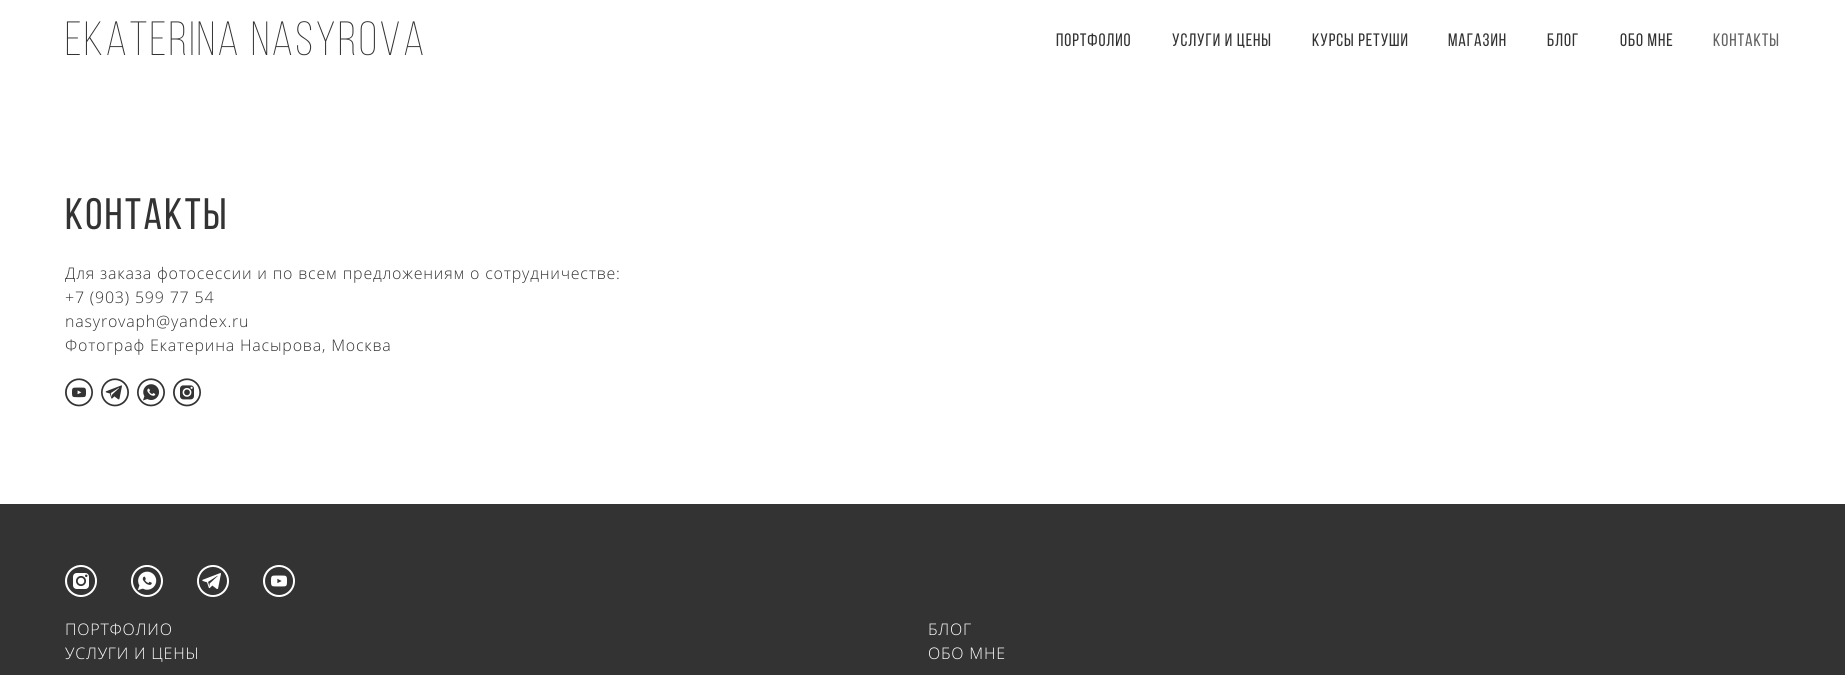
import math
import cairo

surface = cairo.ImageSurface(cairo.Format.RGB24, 1845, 675)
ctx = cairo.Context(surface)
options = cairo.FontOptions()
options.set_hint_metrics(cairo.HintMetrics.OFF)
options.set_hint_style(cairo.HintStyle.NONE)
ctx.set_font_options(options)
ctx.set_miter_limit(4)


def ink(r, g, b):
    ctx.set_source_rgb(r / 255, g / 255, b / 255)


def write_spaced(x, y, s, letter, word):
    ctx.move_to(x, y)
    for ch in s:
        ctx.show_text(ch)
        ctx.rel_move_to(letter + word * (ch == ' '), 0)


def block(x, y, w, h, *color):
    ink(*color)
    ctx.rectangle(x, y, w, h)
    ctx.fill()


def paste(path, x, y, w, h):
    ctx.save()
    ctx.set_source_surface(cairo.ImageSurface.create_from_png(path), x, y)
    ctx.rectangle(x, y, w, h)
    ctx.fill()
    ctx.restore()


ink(255, 255, 255)
ctx.paint()
ctx.select_font_face("Bebas Neue Light")
ctx.set_font_size(48)
ink(51, 51, 51)
write_spaced(65, 55, "EKATERINA NASYROVA", 2.4, 0)
ctx.select_font_face("Bebas Neue")
ctx.set_font_size(18)
write_spaced(1056, 46, "ПОРТФОЛИО", 0.9, 0)
write_spaced(1172, 46, "УСЛУГИ И ЦЕНЫ", 0.9, 0)
write_spaced(1312, 46, "КУРСЫ РЕТУШИ", 0.9, 0)
write_spaced(1448, 46, "Магазин", 0.9, 0)
write_spaced(1547, 46, "БЛОГ", 0.9, 0)
write_spaced(1620, 46, "ОБО МНЕ", 0.9, 0)
ink(98, 98, 98)
write_spaced(1713, 46, "КОНТАКТЫ", 0.9, 0)
ctx.set_font_size(44)
ink(51, 51, 51)
write_spaced(65, 229, "КОНТАКТЫ", 2.25, 0)
ctx.select_font_face("Open Sans Light")
ctx.set_font_size(16)
write_spaced(65, 279, "Для заказа фотосессии и по всем предложениям о сотрудничестве:", 0.8, 0)
write_spaced(65, 303, "+7 (903) 599 77 54", 0.8, 0)
write_spaced(65, 327, "nasyrovaph@yandex.ru", 0.8, 0)
write_spaced(65, 351, "Фотограф Екатерина Насырова, Москва", 0.8, 0)
paste("pic1.png", 65, 378, 28, 29)
paste("pic2.png", 101, 378, 28, 29)
paste("pic3.png", 137, 378, 28, 29)
paste("pic4.png", 173, 378, 28, 29)
block(0, 504, 1845, 171, 51, 51, 51)
paste("pic5.png", 65, 565, 32, 32)
paste("pic6.png", 131, 565, 32, 32)
paste("pic7.png", 197, 565, 32, 32)
paste("pic8.png", 263, 565, 32, 32)
ink(255, 255, 255)
write_spaced(928, 635, "БЛОГ", 0.8, 0)
write_spaced(65, 659, "УСЛУГИ И ЦЕНЫ", 0.8, 0)
write_spaced(928, 659, "ОБО МНЕ", 0.8, 0)
write_spaced(65, 635, "ПОРТФОЛИО", 0.8, 0)
surface.write_to_png("screenshot.png")
